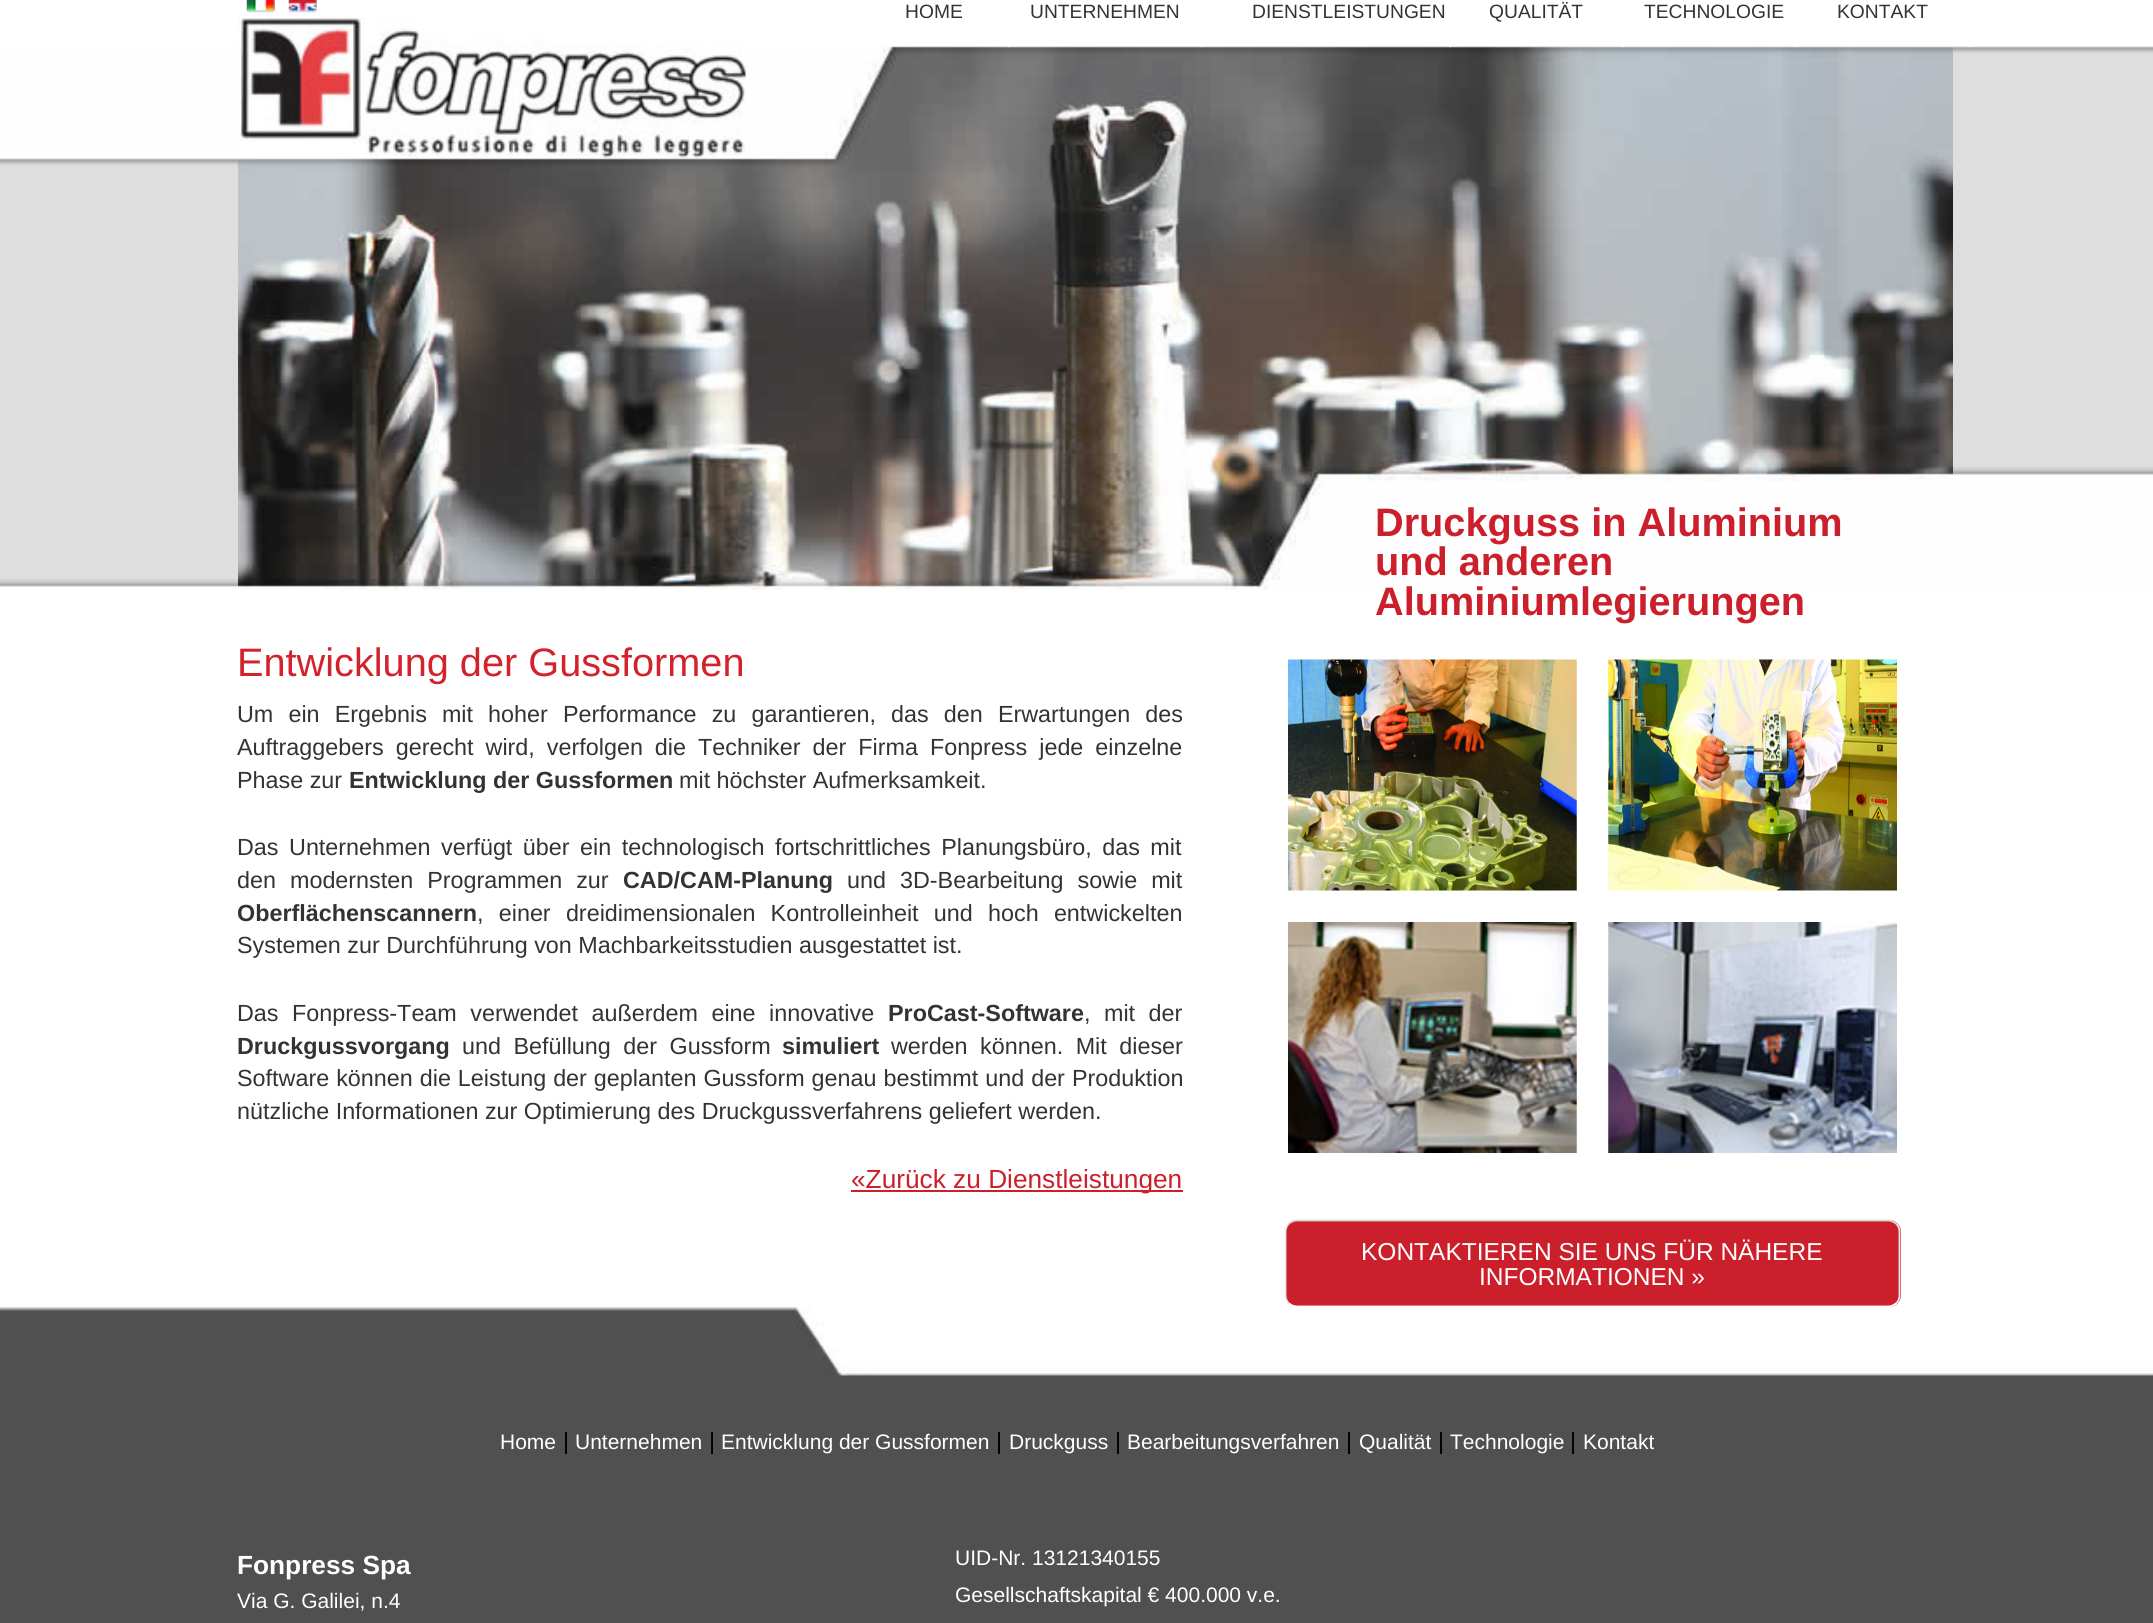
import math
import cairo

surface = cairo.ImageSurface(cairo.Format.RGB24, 2153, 1623)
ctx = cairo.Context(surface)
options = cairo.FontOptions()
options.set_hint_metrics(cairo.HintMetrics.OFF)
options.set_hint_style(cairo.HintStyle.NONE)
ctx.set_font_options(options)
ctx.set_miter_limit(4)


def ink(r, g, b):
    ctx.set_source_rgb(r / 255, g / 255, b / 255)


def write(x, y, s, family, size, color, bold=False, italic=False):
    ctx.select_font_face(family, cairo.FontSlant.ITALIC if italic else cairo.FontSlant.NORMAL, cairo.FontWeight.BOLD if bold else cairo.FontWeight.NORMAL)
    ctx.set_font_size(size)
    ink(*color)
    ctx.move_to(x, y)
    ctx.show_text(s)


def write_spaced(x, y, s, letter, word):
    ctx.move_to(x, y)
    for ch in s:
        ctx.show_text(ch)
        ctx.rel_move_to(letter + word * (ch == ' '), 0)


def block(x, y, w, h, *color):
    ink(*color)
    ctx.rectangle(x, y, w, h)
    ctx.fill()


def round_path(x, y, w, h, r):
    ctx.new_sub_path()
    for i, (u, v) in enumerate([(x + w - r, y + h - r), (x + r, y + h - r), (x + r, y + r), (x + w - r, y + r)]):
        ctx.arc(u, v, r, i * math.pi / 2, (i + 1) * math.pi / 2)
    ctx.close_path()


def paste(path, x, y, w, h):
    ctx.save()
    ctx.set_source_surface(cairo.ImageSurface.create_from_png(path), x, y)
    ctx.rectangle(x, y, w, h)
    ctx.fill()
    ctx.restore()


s1 = dict(family="Liberation Sans", size=19.25, color=(51, 51, 51))
s2 = dict(family="Liberation Sans", size=39.7, color=(203, 31, 43), bold=True)
s3 = dict(family="Liberation Sans", size=39.7, color=(211, 34, 44))
s4 = dict(family="Liberation Sans", size=23.35, color=(51, 51, 51))
s5 = dict(family="Liberation Sans", size=23.35, color=(51, 51, 51), bold=True)
s6 = dict(family="Liberation Sans", size=26.25, color=(203, 31, 43))
s7 = dict(family="Liberation Sans", size=24.5, color=(255, 255, 255))
s8 = dict(family="Liberation Sans", size=21, color=(255, 255, 255))
s9 = dict(family="Liberation Sans", size=23.35, color=(0, 0, 0))
s10 = dict(family="Liberation Sans", size=26.25, color=(255, 255, 255), bold=True)

ink(255, 255, 255)
ctx.paint()
paste("pic1.png", 0, 46, 2153, 543)
paste("pic2.png", 246, 0, 29, 13)
paste("pic3.png", 288, 0, 29, 13)
paste("pic5.png", 238, 46, 1715, 544)
paste("pic4.png", 238, 17, 508, 141)
block(1008, 46, 2, 1, 255, 255, 255)
write(905, 18, "HOME", **s1)
block(1201, 46, 2, 1, 255, 255, 255)
write(1030, 18, "UNTERNEHMEN", **s1)
block(1449, 46, 2, 1, 255, 255, 255)
write(1252, 18, "DIENSTLEISTUNGEN", **s1)
block(1622, 46, 2, 1, 255, 255, 255)
write(1489, 18, "QUALITÄT", **s1)
block(1796, 46, 2, 1, 255, 255, 255)
write(1644, 18, "TECHNOLOGIE", **s1)
block(1969, 46, 2, 1, 255, 255, 255)
write(1837, 18, "KONTAKT", **s1)
write(1375, 536, "Druckguss in Aluminium", **s2)
write(1375, 575, "und anderen", **s2)
write(1375, 615, "Aluminiumlegierungen", **s2)
write(237, 676, "Entwicklung der Gussformen", **s3)
ctx.set_font_size(23.35)
ink(51, 51, 51)
write_spaced(237, 722, "Um ein Ergebnis mit hoher Performance zu garantieren, das den Erwartungen des", 0, 8.6)
write_spaced(237, 755, "Auftraggebers gerecht wird, verfolgen die Techniker der Firma Fonpress jede einzelne", 0, 5.5)
write(237, 788, "Phase zur", **s4)
write(349, 788, "Entwicklung der Gussformen", **s5)
write(679, 788, "mit höchster Aufmerksamkeit.", **s4)
write_spaced(237, 855, "Das Unternehmen verfügt über ein technologisch fortschrittliches Planungsbüro, das mit", 0, 4)
write_spaced(237, 888, "den modernsten Programmen zur", 0, 7.5)
write(623, 888, "CAD/CAM-Planung", **s5)
ctx.select_font_face("Liberation Sans")
write_spaced(847, 888, "und 3D-Bearbeitung sowie mit", 0, 7.5)
write(237, 921, "Oberflächenscannern", **s5)
ctx.select_font_face("Liberation Sans")
write_spaced(477, 921, ", einer dreidimensionalen Kontrolleinheit und hoch entwickelten", 0, 8.75)
write(237, 953, "Systemen zur Durchführung von Machbarkeitsstudien ausgestattet ist.", **s4)
write_spaced(237, 1021, "Das Fonpress-Team verwendet außerdem eine innovative", 0, 7)
write(888, 1021, "ProCast-Software", **s5)
ctx.select_font_face("Liberation Sans")
write_spaced(1084, 1021, ", mit der", 0, 7)
write(237, 1054, "Druckgussvorgang", **s5)
ctx.select_font_face("Liberation Sans")
write_spaced(462, 1054, "und Befüllung der Gussform", 0, 6)
write(782, 1054, "simuliert", **s5)
ctx.select_font_face("Liberation Sans")
write_spaced(891, 1054, "werden können. Mit dieser", 0, 6)
write_spaced(237, 1086, "Software können die Leistung der geplanten Gussform genau bestimmt und der Produktion", 0, 0.5)
write(237, 1119, "nützliche Informationen zur Optimierung des Druckgussverfahrens geliefert werden.", **s4)
block(851, 1190, 332, 2, 203, 31, 43)
write(851, 1188, "«Zurück zu Dienstleistungen", **s6)
paste("pic6.png", 1288, 659, 289, 232)
paste("pic7.png", 1608, 659, 289, 232)
paste("pic8.png", 1288, 922, 289, 231)
paste("pic9.png", 1608, 922, 289, 231)
round_path(1285, 1220, 616, 87, 12)
ctx.fill()
ctx.new_path()
ctx.move_to(1288.5, 1224)
ctx.curve_to(1291, 1222, 1293.5, 1220.5, 1297, 1220.5)
ctx.line_to(1888, 1220.5)
ctx.curve_to(1891.5, 1220.5, 1894, 1222, 1896.5, 1224)
ink(217, 217, 217)
ctx.set_line_width(1.8)
ctx.stroke()
ctx.new_path()
ctx.move_to(1896.5, 1224)
ctx.curve_to(1898.5, 1226, 1899.5, 1229, 1899.5, 1232)
ctx.line_to(1899.5, 1295)
ctx.curve_to(1899.5, 1298, 1898.5, 1301, 1896.5, 1303)
ink(234, 234, 234)
ctx.stroke()
paste("pic10.png", 0, 1307, 2153, 70)
ctx.new_path()
ctx.move_to(1896.5, 1303)
ctx.curve_to(1894, 1305, 1891.5, 1306.5, 1888, 1306.5)
ctx.line_to(1297, 1306.5)
ctx.curve_to(1293.5, 1306.5, 1291, 1305, 1288.5, 1303)
ink(255, 255, 255)
ctx.stroke()
ctx.new_path()
ctx.move_to(1288.5, 1303)
ctx.curve_to(1286.5, 1301, 1285.5, 1298, 1285.5, 1295)
ctx.line_to(1285.5, 1232)
ctx.curve_to(1285.5, 1229, 1286.5, 1226, 1288.5, 1224)
ink(234, 234, 234)
ctx.stroke()
write(1361, 1260, "KONTAKTIEREN SIE UNS FÜR NÄHERE", **s7)
write(1479, 1285, "INFORMATIONEN »", **s7)
block(0, 1377, 2153, 246, 80, 80, 80)
paste("pic11.png", 795, 1307, 70, 70)
write(500, 1449, "Home", **s8)
write(563, 1449, "|", **s9)
write(575, 1449, "Unternehmen", **s8)
write(709, 1449, "|", **s9)
write(721, 1449, "Entwicklung der Gussformen", **s8)
write(996, 1449, "|", **s9)
write(1009, 1449, "Druckguss", **s8)
write(1115, 1449, "|", **s9)
write(1127, 1449, "Bearbeitungsverfahren", **s8)
write(1346, 1449, "|", **s9)
write(1359, 1449, "Qualität", **s8)
write(1438, 1449, "|", **s9)
write(1450, 1449, "Technologie", **s8)
write(1570, 1449, "|", **s9)
write(1583, 1449, "Kontakt", **s8)
write(237, 1574, "Fonpress Spa", **s10)
write(237, 1608, "Via G. Galilei, n.4", **s8)
write(955, 1565, "UID-Nr. 13121340155", **s8)
write(955, 1602, "Gesellschaftskapital € 400.000 v.e.", **s8)
surface.write_to_png("screenshot.png")
